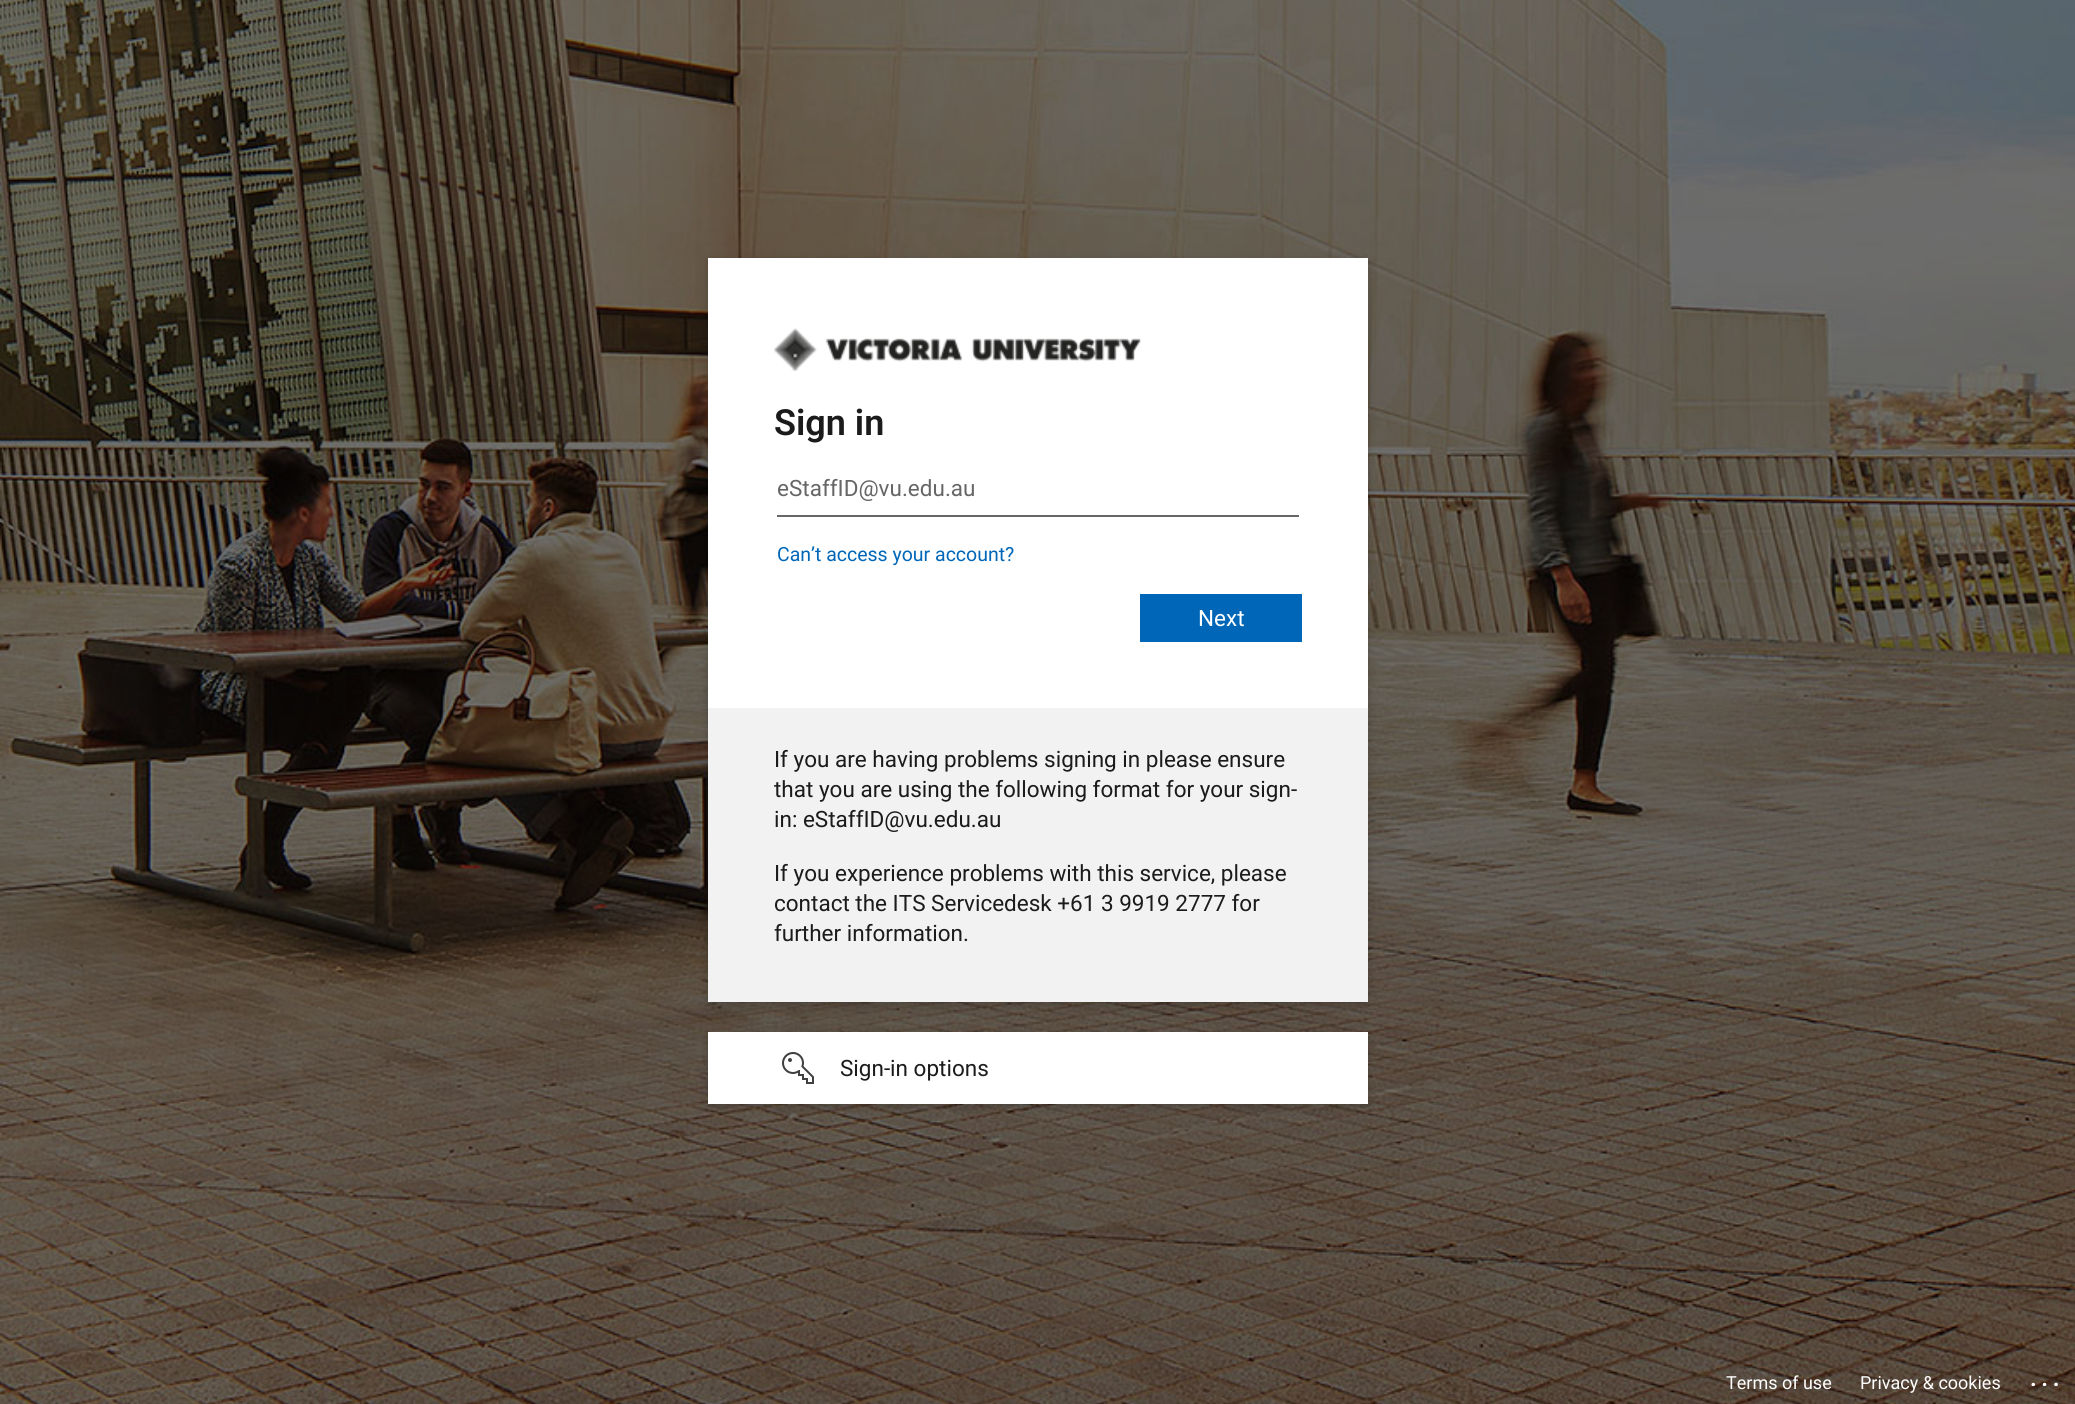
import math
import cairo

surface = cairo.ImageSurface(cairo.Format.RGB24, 2075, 1404)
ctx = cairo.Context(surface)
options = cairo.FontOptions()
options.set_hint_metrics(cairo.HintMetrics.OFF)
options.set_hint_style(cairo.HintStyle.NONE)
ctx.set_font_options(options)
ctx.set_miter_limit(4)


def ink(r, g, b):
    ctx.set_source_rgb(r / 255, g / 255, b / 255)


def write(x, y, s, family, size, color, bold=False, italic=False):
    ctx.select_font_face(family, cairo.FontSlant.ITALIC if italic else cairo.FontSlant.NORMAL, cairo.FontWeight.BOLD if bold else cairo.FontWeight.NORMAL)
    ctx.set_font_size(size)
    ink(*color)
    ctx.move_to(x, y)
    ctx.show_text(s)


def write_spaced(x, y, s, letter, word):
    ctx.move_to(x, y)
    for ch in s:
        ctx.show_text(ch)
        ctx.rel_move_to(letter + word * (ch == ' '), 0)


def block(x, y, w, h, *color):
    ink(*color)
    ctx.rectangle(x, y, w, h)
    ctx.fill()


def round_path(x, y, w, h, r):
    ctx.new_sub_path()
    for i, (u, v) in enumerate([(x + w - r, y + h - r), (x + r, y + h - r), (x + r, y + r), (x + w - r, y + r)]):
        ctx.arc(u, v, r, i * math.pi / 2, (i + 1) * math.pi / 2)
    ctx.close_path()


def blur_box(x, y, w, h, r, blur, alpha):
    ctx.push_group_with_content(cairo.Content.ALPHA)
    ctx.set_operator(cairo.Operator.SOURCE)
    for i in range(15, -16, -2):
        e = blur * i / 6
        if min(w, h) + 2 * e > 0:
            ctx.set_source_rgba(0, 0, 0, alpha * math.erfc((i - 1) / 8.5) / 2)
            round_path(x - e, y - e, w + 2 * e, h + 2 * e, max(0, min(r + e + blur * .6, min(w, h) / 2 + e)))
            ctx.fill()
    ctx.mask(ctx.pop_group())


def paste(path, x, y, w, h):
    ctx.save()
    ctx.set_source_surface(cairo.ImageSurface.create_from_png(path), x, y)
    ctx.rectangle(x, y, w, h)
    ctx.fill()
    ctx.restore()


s1 = dict(family="Roboto SemiBold", size=36, color=(27, 27, 27))
s2 = dict(family="Roboto", size=22.5, color=(102, 102, 102))
s3 = dict(family="Roboto", size=19.5, color=(0, 103, 184))
s4 = dict(family="Roboto", size=22.5, color=(255, 255, 255))
s5 = dict(family="Roboto", size=22.5, color=(27, 27, 27))
s6 = dict(family="Roboto", size=18, color=(255, 255, 255))

ink(255, 255, 255)
ctx.paint()
paste("pic1.png", 0, 0, 2075, 1404)
ink(0, 0, 0)
blur_box(708, 261, 660, 744, 0, 4.5, 0.2)
block(708, 258, 660, 450, 255, 255, 255)
paste("pic2.png", 774, 328, 367, 43)
write(774, 435, "Sign in", **s1)
block(777, 515, 522, 2, 102, 102, 102)
write(777, 496, "eStaffID@vu.edu.au", **s2)
write(777, 561, "Can’t access your account?", **s3)
block(1140, 594, 162, 48, 0, 103, 184)
write(1198, 626, "Next", **s4)
block(708, 708, 660, 294, 242, 242, 242)
write(774, 767, "If you are having problems signing in please ensure", **s5)
write(774, 797, "that you are using the following format for your sign-", **s5)
write(774, 827, "in: eStaffID@vu.edu.au", **s5)
write(774, 881, "If you experience problems with this service, please", **s5)
write(774, 911, "contact the ITS Servicedesk +61 3 9919 2777 for", **s5)
write(774, 941, "further information.", **s5)
ink(0, 0, 0)
blur_box(708, 1035, 660, 72, 0, 4.5, 0.2)
block(708, 1032, 660, 72, 255, 255, 255)
paste("pic3.png", 782, 1052, 32, 32)
write(840, 1076, "Sign-in options", **s5)
write(1726, 1389, "Terms of use", **s6)
write(1860, 1389, "Privacy & cookies", **s6)
ctx.select_font_face("Roboto SemiBold")
ctx.set_font_size(24)
write_spaced(2030, 1386, "...", 4.5, 0)
surface.write_to_png("screenshot.png")
